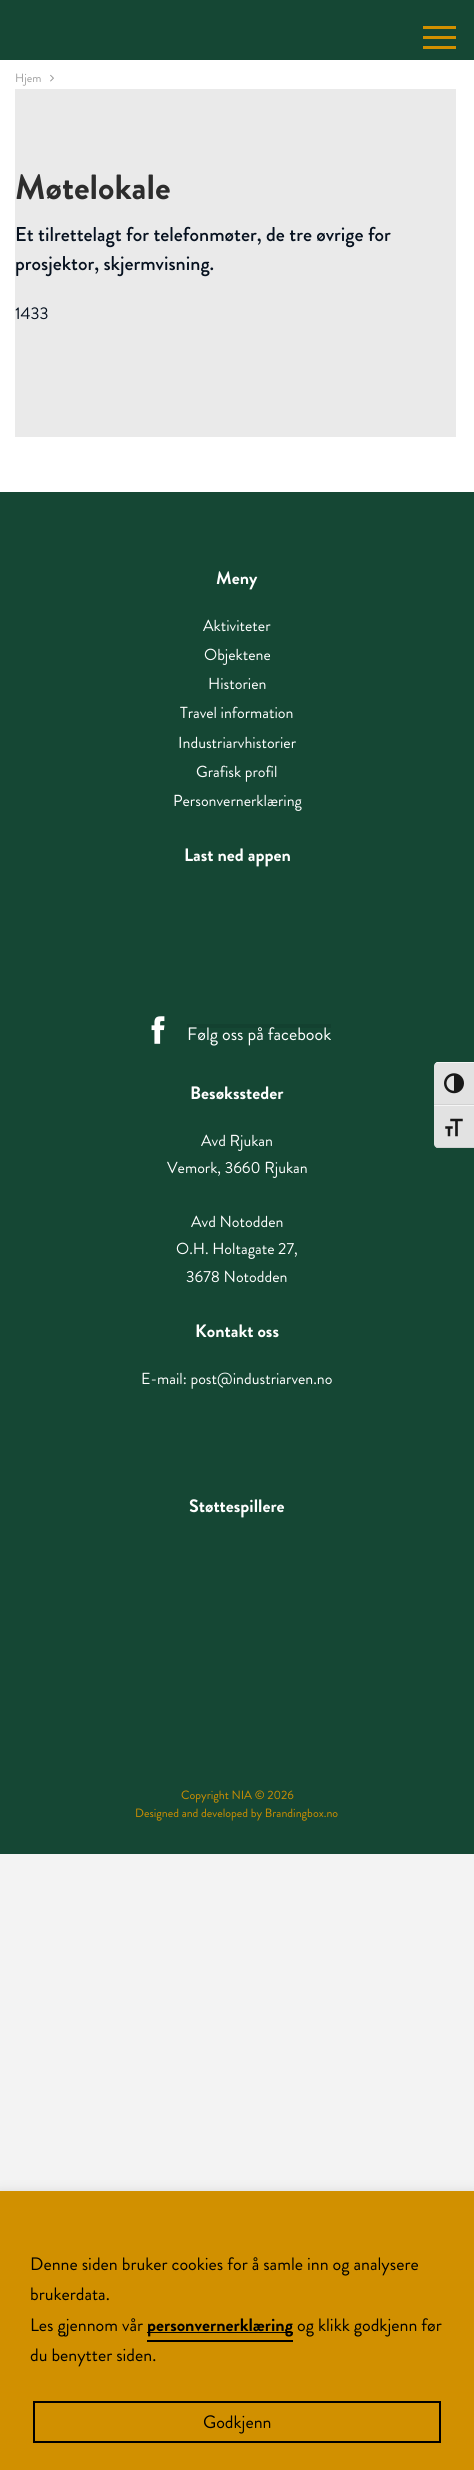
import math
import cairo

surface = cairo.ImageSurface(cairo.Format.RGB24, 474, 2470)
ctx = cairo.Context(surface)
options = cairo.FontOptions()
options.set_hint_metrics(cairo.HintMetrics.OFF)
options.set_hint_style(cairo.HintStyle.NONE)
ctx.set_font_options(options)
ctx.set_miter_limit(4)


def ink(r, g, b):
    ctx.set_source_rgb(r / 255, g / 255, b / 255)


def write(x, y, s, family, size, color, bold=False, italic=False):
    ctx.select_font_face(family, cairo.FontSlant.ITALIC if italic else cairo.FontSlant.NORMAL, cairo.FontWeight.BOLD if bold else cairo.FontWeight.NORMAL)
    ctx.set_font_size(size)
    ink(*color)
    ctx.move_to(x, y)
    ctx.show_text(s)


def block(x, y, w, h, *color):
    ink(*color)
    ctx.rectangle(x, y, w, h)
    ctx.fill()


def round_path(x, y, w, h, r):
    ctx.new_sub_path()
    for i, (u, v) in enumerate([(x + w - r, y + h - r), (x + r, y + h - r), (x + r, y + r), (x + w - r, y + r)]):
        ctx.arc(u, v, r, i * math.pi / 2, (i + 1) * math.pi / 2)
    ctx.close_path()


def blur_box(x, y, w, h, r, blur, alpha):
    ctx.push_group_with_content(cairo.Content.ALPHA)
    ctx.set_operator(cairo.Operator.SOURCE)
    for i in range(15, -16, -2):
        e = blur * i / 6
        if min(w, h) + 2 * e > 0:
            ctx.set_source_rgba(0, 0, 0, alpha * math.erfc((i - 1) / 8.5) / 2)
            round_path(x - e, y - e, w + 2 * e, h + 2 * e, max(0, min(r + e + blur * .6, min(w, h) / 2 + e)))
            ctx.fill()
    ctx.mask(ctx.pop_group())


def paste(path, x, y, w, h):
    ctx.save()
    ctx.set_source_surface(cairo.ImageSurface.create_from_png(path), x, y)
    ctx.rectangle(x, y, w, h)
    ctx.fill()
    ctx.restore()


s1 = dict(family="Brandon Grotesque", size=12, color=(158, 158, 158))
s2 = dict(family="Brandon Grotesque", size=35, color=(45, 45, 45), bold=True)
s3 = dict(family="Brandon Grotesque Medium", size=20, color=(6, 17, 31))
s4 = dict(family="Brandon Grotesque", size=17, color=(6, 17, 31))
s5 = dict(family="Brandon Grotesque", size=18, color=(255, 255, 255), bold=True)
s6 = dict(family="Brandon Grotesque", size=16, color=(255, 255, 255))
s7 = dict(family="Brandon Grotesque", size=18, color=(255, 255, 255))
s8 = dict(family="Brandon Grotesque", size=12, color=(209, 144, 0))
s9 = dict(family="Brandon Grotesque", size=18, color=(0, 0, 0))
s10 = dict(family="Brandon Grotesque", size=18, color=(0, 0, 0), bold=True)

ink(243, 243, 243)
ctx.paint()
block(0, 60, 474, 432, 255, 255, 255)
block(0, 0, 474, 60, 21, 71, 52)
block(423, 36, 33, 3, 209, 144, 0)
block(423, 26, 33, 3, 209, 144, 0)
block(423, 46, 33, 3, 209, 144, 0)
write(15, 82, "Hjem", **s1)
paste("pic1.png", 50, 74, 4, 8)
block(15, 89, 441, 348, 234, 234, 234)
write(15, 199, "Møtelokale", **s2)
write(15, 241, "Et tilrettelagt for telefonmøter, de tre øvrige for", **s3)
write(15, 270, "prosjektor, skjermvisning.", **s3)
write(15, 319, "1433", **s4)
block(0, 492, 474, 1362, 21, 71, 52)
write(216, 584, "Meny", **s5)
write(203, 631, "Aktiviteter", **s6)
write(204, 660, "Objektene", **s6)
write(208, 689, "Historien", **s6)
write(180, 718, "Travel information", **s6)
write(178, 748, "Industriarvhistorier", **s6)
write(196, 777, "Grafisk profil", **s6)
write(173, 806, "Personvernerklæring", **s6)
write(184, 861, "Last ned appen", **s5)
paste("pic2.png", 151, 1016, 14, 28)
ctx.set_source_rgba(0, 0, 0, 0.08)
ctx.rectangle(187, 1024, 144, 4)
ctx.fill()
write(187, 1040, "Følg oss på facebook", **s7)
write(190, 1099, "Besøkssteder", **s5)
write(201, 1146, "Avd Rjukan", **s6)
write(167, 1173, "Vemork, 3660 Rjukan", **s6)
write(191, 1227, "Avd Notodden", **s6)
write(176, 1254, "O.H. Holtagate 27,", **s6)
write(186, 1282, "3678 Notodden", **s6)
write(195, 1337, "Kontakt oss", **s5)
write(141, 1384, "E-mail: post@industriarven.no", **s6)
write(189, 1512, "Støttespillere", **s5)
write(181, 1799, "Copyright NIA © 2026", **s8)
write(135, 1817, "Designed and developed by Brandingbox.no", **s8)
ink(226, 226, 226)
ctx.new_path()
ctx.move_to(438, 1062)
ctx.line_to(474, 1062)
ctx.line_to(474, 1105)
ctx.line_to(434, 1105)
ctx.line_to(434, 1066)
ctx.curve_to(434, 1064, 436, 1062, 438, 1062)
ctx.close_path()
ctx.fill()
ink(245, 245, 245)
ctx.new_path()
ctx.move_to(438, 1063)
ctx.line_to(474, 1063)
ctx.line_to(474, 1062)
ctx.line_to(438, 1062)
ctx.curve_to(436, 1062, 434, 1064, 434, 1066)
ctx.curve_to(434, 1064, 436, 1063, 438, 1063)
ctx.close_path()
ctx.fill()
block(434, 1104, 40, 1, 210, 210, 210)
paste("pic3.png", 444, 1073, 20, 21)
ink(226, 226, 226)
ctx.new_path()
ctx.move_to(434, 1105)
ctx.line_to(474, 1105)
ctx.line_to(474, 1148)
ctx.line_to(438, 1148)
ctx.curve_to(436, 1148, 434, 1146, 434, 1144)
ctx.close_path()
ctx.fill()
block(434, 1105, 40, 1, 245, 245, 245)
ink(210, 210, 210)
ctx.new_path()
ctx.move_to(474, 1148)
ctx.line_to(474, 1147)
ctx.line_to(438, 1147)
ctx.curve_to(436, 1147, 434, 1146, 434, 1144)
ctx.curve_to(434, 1146, 436, 1148, 438, 1148)
ctx.close_path()
ctx.fill()
paste("pic4.png", 445, 1118, 18, 19)
ink(172, 171, 171)
blur_box(0, 2190, 474, 279, 0, 5, 0.3)
block(0, 2191, 474, 279, 209, 144, 0)
write(30, 2270, "Denne siden bruker cookies for å samle inn og analysere", **s9)
write(30, 2300, "brukerdata.", **s9)
write(30, 2331, "Les gjennom vår", **s9)
block(147, 2332, 146, 1, 0, 0, 0)
write(147, 2331, "personvernerklæring", **s10)
block(147, 2340, 146, 2, 0, 0, 0)
write(297, 2331, "og klikk godkjenn før", **s9)
write(30, 2361, "du benytter siden.", **s9)
ctx.rectangle(34, 2402, 406, 40)
ctx.stroke()
write(203, 2428, "Godkjenn", **s9)
surface.write_to_png("screenshot.png")
